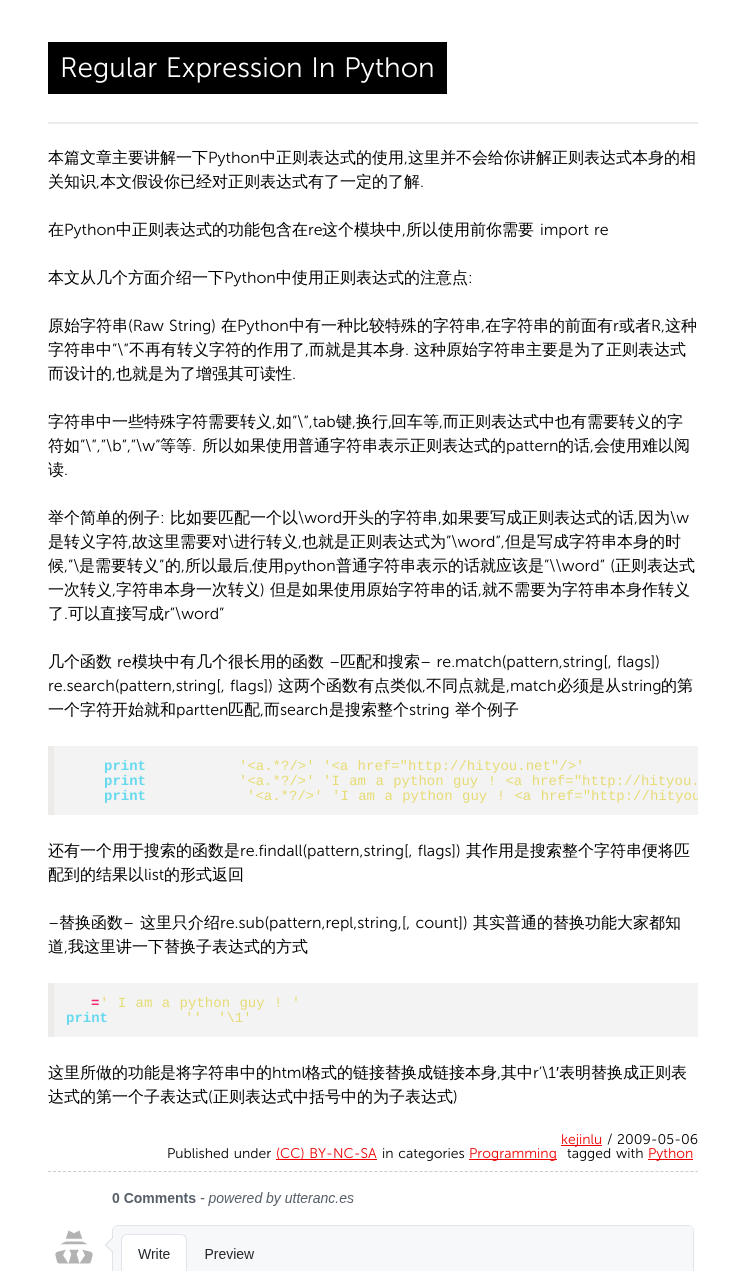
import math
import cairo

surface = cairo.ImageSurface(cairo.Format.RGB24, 746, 1271)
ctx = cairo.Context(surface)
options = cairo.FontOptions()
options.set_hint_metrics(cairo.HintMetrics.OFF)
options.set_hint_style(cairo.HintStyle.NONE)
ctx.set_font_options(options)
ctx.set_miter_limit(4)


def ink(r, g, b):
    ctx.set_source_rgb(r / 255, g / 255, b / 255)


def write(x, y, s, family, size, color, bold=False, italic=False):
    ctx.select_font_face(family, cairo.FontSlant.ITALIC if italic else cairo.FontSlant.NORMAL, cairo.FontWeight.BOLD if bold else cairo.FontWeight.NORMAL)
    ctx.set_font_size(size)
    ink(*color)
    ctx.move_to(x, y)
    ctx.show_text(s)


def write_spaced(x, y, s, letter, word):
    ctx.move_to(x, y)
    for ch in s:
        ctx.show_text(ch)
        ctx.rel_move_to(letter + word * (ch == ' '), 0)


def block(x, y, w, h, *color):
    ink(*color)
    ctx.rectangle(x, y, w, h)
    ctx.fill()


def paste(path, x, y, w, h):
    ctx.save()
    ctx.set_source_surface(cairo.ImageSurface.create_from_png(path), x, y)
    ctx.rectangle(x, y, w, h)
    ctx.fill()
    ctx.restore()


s1 = dict(family="WenQuanYi Zen Hei Medium", size=16, color=(0, 0, 0))
s2 = dict(family="Museo Sans Light", size=16, color=(0, 0, 0))
s3 = dict(family="Liberation Mono", size=14, color=(102, 217, 239), bold=True)
s4 = dict(family="Liberation Mono", size=14, color=(230, 219, 116))
s5 = dict(family="Liberation Mono", size=14, color=(249, 38, 114), bold=True)
s6 = dict(family="Liberation Sans", size=16, color=(0, 0, 0))
s7 = dict(family="Museo Sans Light", size=14, color=(238, 0, 0))
s8 = dict(family="Museo Sans Light", size=14, color=(0, 0, 0))

ink(255, 255, 255)
ctx.paint()
block(48, 42, 399, 52, 0, 0, 0)
ctx.select_font_face("Museo Sans Light")
ctx.set_font_size(28)
ink(255, 255, 255)
write_spaced(60, 77, "Regular Expression In Python", 0, 1)
block(48, 122, 650, 2, 237, 235, 234)
write(48, 163, "本篇文章主要讲解一下", **s1)
write(208, 163, "Python", **s2)
write(260, 163, "中正则表达式的使用", **s1)
write(404, 163, ",", **s2)
write(408, 163, "这里并不会给你讲解正则表达式本身的相", **s1)
write(48, 187, "关知识", **s1)
write(96, 187, ",", **s2)
write(100, 187, "本文假设你已经对正则表达式有了一定的了解", **s1)
write(420, 187, ".", **s2)
write(48, 235, "在", **s1)
write(64, 235, "Python", **s2)
write(116, 235, "中正则表达式的功能包含在", **s1)
write(308, 235, "re", **s2)
write(322, 235, "这个模块中", **s1)
write(402, 235, ",", **s2)
write(406, 235, "所以使用前你需要", **s1)
ctx.select_font_face("Museo Sans Light")
write_spaced(540, 235, "import re", 0, 1)
write(48, 283, "本文从几个方面介绍一下", **s1)
write(224, 283, "Python", **s2)
write(276, 283, "中使用正则表达式的注意点", **s1)
write(468, 283, ":", **s2)
write(48, 331, "原始字符串", **s1)
ctx.select_font_face("Museo Sans Light")
write_spaced(128, 331, "(Raw String)", 0, 1)
write(221, 331, "在", **s1)
write(237, 331, "Python", **s2)
write(289, 331, "中有一种比较特殊的字符串", **s1)
write(481, 331, ",", **s2)
write(485, 331, "在字符串的前面有", **s1)
write(613, 331, "r", **s2)
write(619, 331, "或者", **s1)
write(651, 331, "R,", **s2)
write(665, 331, "这种", **s1)
write(48, 355, "字符串中", **s1)
write(112, 355, "”\\”", **s2)
write(129, 355, "不再有转义字符的作用了", **s1)
write(305, 355, ",", **s2)
write(309, 355, "而就是其本身", **s1)
write(405, 355, ".", **s2)
write(414, 355, "这种原始字符串主要是为了正则表达式", **s1)
write(48, 379, "而设计的", **s1)
write(112, 379, ",", **s2)
write(116, 379, "也就是为了增强其可读性", **s1)
write(292, 379, ".", **s2)
write(48, 427, "字符串中一些特殊字符需要转义", **s1)
write(272, 427, ",", **s2)
write(276, 427, "如", **s1)
write(292, 427, "”\\”,tab", **s2)
write(336, 427, "键", **s1)
write(352, 427, ",", **s2)
write(356, 427, "换行", **s1)
write(388, 427, ",", **s2)
write(391, 427, "回车等", **s1)
write(439, 427, ",", **s2)
write(443, 427, "而正则表达式中也有需要转义的字", **s1)
write(48, 451, "符如", **s1)
write(80, 451, "”\\”,”\\b”,”\\w”", **s2)
write(160, 451, "等等", **s1)
write(192, 451, ".", **s2)
write(202, 451, "所以如果使用普通字符串表示正则表达式的", **s1)
write(506, 451, "pattern", **s2)
write(558, 451, "的话", **s1)
write(590, 451, ",", **s2)
write(594, 451, "会使用难以阅", **s1)
write(48, 475, "读", **s1)
write(64, 475, ".", **s2)
write(48, 523, "举个简单的例子", **s1)
write(160, 523, ":", **s2)
write(170, 523, "比如要匹配一个以", **s1)
write(298, 523, "\\word", **s2)
write(342, 523, "开头的字符串", **s1)
write(438, 523, ",", **s2)
write(442, 523, "如果要写成正则表达式的话", **s1)
write(634, 523, ",", **s2)
write(638, 523, "因为", **s1)
write(670, 523, "\\w", **s2)
write(48, 547, "是转义字符", **s1)
write(128, 547, ",", **s2)
write(132, 547, "故这里需要对", **s1)
write(228, 547, "\\", **s2)
write(234, 547, "进行转义", **s1)
write(298, 547, ",", **s2)
write(302, 547, "也就是正则表达式为", **s1)
write(446, 547, "”\\word”,", **s2)
write(505, 547, "但是写成字符串本身的时", **s1)
write(48, 571, "候", **s1)
write(64, 571, ",”\\", **s2)
write(79, 571, "是需要转义", **s1)
write(159, 571, "”", **s2)
write(165, 571, "的", **s1)
write(181, 571, ",", **s2)
write(185, 571, "所以最后", **s1)
write(249, 571, ",", **s2)
write(252, 571, "使用", **s1)
write(284, 571, "python", **s2)
write(336, 571, "普通字符串表示的话就应该是", **s1)
ctx.select_font_face("Museo Sans Light")
write_spaced(544, 571, "”\\\\word” (", 0, 1)
write(615, 571, "正则表达式", **s1)
write(48, 595, "一次转义", **s1)
write(112, 595, ",", **s2)
write(116, 595, "字符串本身一次转义", **s1)
write(260, 595, ")", **s2)
write(270, 595, "但是如果使用原始字符串的话", **s1)
write(478, 595, ",", **s2)
write(482, 595, "就不需要为字符串本身作转义", **s1)
write(48, 619, "了", **s1)
write(64, 619, ".", **s2)
write(68, 619, "可以直接写成", **s1)
write(164, 619, "r”\\word”", **s2)
write(48, 667, "几个函数", **s1)
write(117, 667, "re", **s2)
write(132, 667, "模块中有几个很长用的函数", **s1)
write(329, 667, "–", **s2)
write(340, 667, "匹配和搜索", **s1)
ctx.select_font_face("Museo Sans Light")
write_spaced(420, 667, "– re.match(pattern,string[, flags])", 0, 1)
write_spaced(48, 691, "re.search(pattern,string[, flags])", 0, 1)
write(278, 691, "这两个函数有点类似", **s1)
write(422, 691, ",", **s2)
write(426, 691, "不同点就是", **s1)
write(506, 691, ",match", **s2)
write(557, 691, "必须是从", **s1)
write(621, 691, "string", **s2)
write(661, 691, "的第", **s1)
write(48, 715, "一个字符开始就和", **s1)
write(176, 715, "partten", **s2)
write(228, 715, "匹配", **s1)
write(260, 715, ",", **s2)
write(264, 715, "而", **s1)
write(280, 715, "search", **s2)
write(329, 715, "是搜索整个", **s1)
write(409, 715, "string", **s2)
write(455, 715, "举个例子", **s1)
block(54, 746, 644, 69, 243, 243, 243)
block(48, 746, 6, 69, 237, 235, 234)
write(104, 770, "print", **s3)
write(239, 770, "'<a.*?/>'", **s4)
write_spaced(323, 770, "'<a href=\"http://hityou.net\"/>'", 0, 1)
write(104, 785, "print", **s3)
write(239, 785, "'<a.*?/>'", **s4)
write_spaced(323, 785, "'I am a python guy ! <a href=\"http://hityou.", 0, 1)
write(104, 800, "print", **s3)
write(247, 800, "'<a.*?/>'", **s4)
ctx.save()
ctx.rectangle(54, 746, 644, 69)
ctx.clip()
write_spaced(332, 800, "'I am a python guy ! <a href=\"http://hityou", 0, 1)
ctx.restore()
write(48, 856, "还有一个用于搜索的函数是", **s1)
ctx.select_font_face("Museo Sans Light")
write_spaced(240, 856, "re.findall(pattern,string[, flags])", 0, 1)
write(466, 856, "其作用是搜索整个字符串便将匹", **s1)
write(48, 880, "配到的结果以", **s1)
write(144, 880, "list", **s2)
write(164, 880, "的形式返回", **s1)
write(48, 928, "–", **s2)
write(59, 928, "替换函数", **s1)
write(123, 928, "–", **s2)
write(140, 928, "这里只介绍", **s1)
ctx.select_font_face("Museo Sans Light")
write_spaced(220, 928, "re.sub(pattern,repl,string,[, count])", 0, 1)
write(473, 928, "其实普通的替换功能大家都知", **s1)
write(48, 952, "道", **s1)
write(64, 952, ",", **s2)
write(68, 952, "我这里讲一下替换子表达式的方式", **s1)
block(54, 983, 644, 54, 243, 243, 243)
block(48, 983, 6, 54, 237, 235, 234)
write(91, 1007, "=", **s5)
ctx.select_font_face("Liberation Mono")
ink(230, 219, 116)
write_spaced(100, 1007, "' I am a python guy ! '", 0, 1)
write(66, 1022, "print", **s3)
write(185, 1022, "''", **s4)
write(218, 1022, "'\\1'", **s4)
write(48, 1078, "这里所做的功能是将字符串中的", **s1)
write(272, 1078, "html", **s2)
write(305, 1078, "格式的链接替换成链接本身", **s1)
write(501, 1078, "其中", **s1)
write(533, 1078, "r’\\1", **s2)
write(556, 1078, "′", **s6)
write(559, 1078, "表明替换成正则表", **s1)
write(497, 1078, ",", **s2)
write(48, 1102, "达式的第一个子表达式", **s1)
write(208, 1102, "(", **s2)
write(213, 1102, "正则表达式中括号中的为子表达式", **s1)
write(453, 1102, ")", **s2)
block(561, 1145, 41, 1, 238, 0, 0)
write(561, 1144, "kejinlu", **s7)
write(607, 1144, "/", **s8)
write(617, 1144, "2009-05-06", **s8)
write_spaced(167, 1158, "Published under", 0, 1)
block(276, 1159, 101, 1, 238, 0, 0)
write_spaced(276, 1158, "(CC) BY-NC-SA", 0, 1)
ink(0, 0, 0)
write_spaced(382, 1158, "in categories", 0, 1)
block(469, 1159, 88, 1, 238, 0, 0)
write(469, 1158, "Programming", **s7)
ink(0, 0, 0)
write_spaced(567, 1158, "tagged with", 0, 1)
block(648, 1159, 45, 1, 238, 0, 0)
write(648, 1158, "Python", **s7)
ctx.new_path()
ctx.move_to(48, 1171.5)
ctx.line_to(698, 1171.5)
ink(204, 204, 204)
ctx.set_line_width(1)
ctx.set_dash([3, 2.02])
ctx.stroke()
paste("pic1.png", 55, 1192, 639, 79)
surface.write_to_png("screenshot.png")
